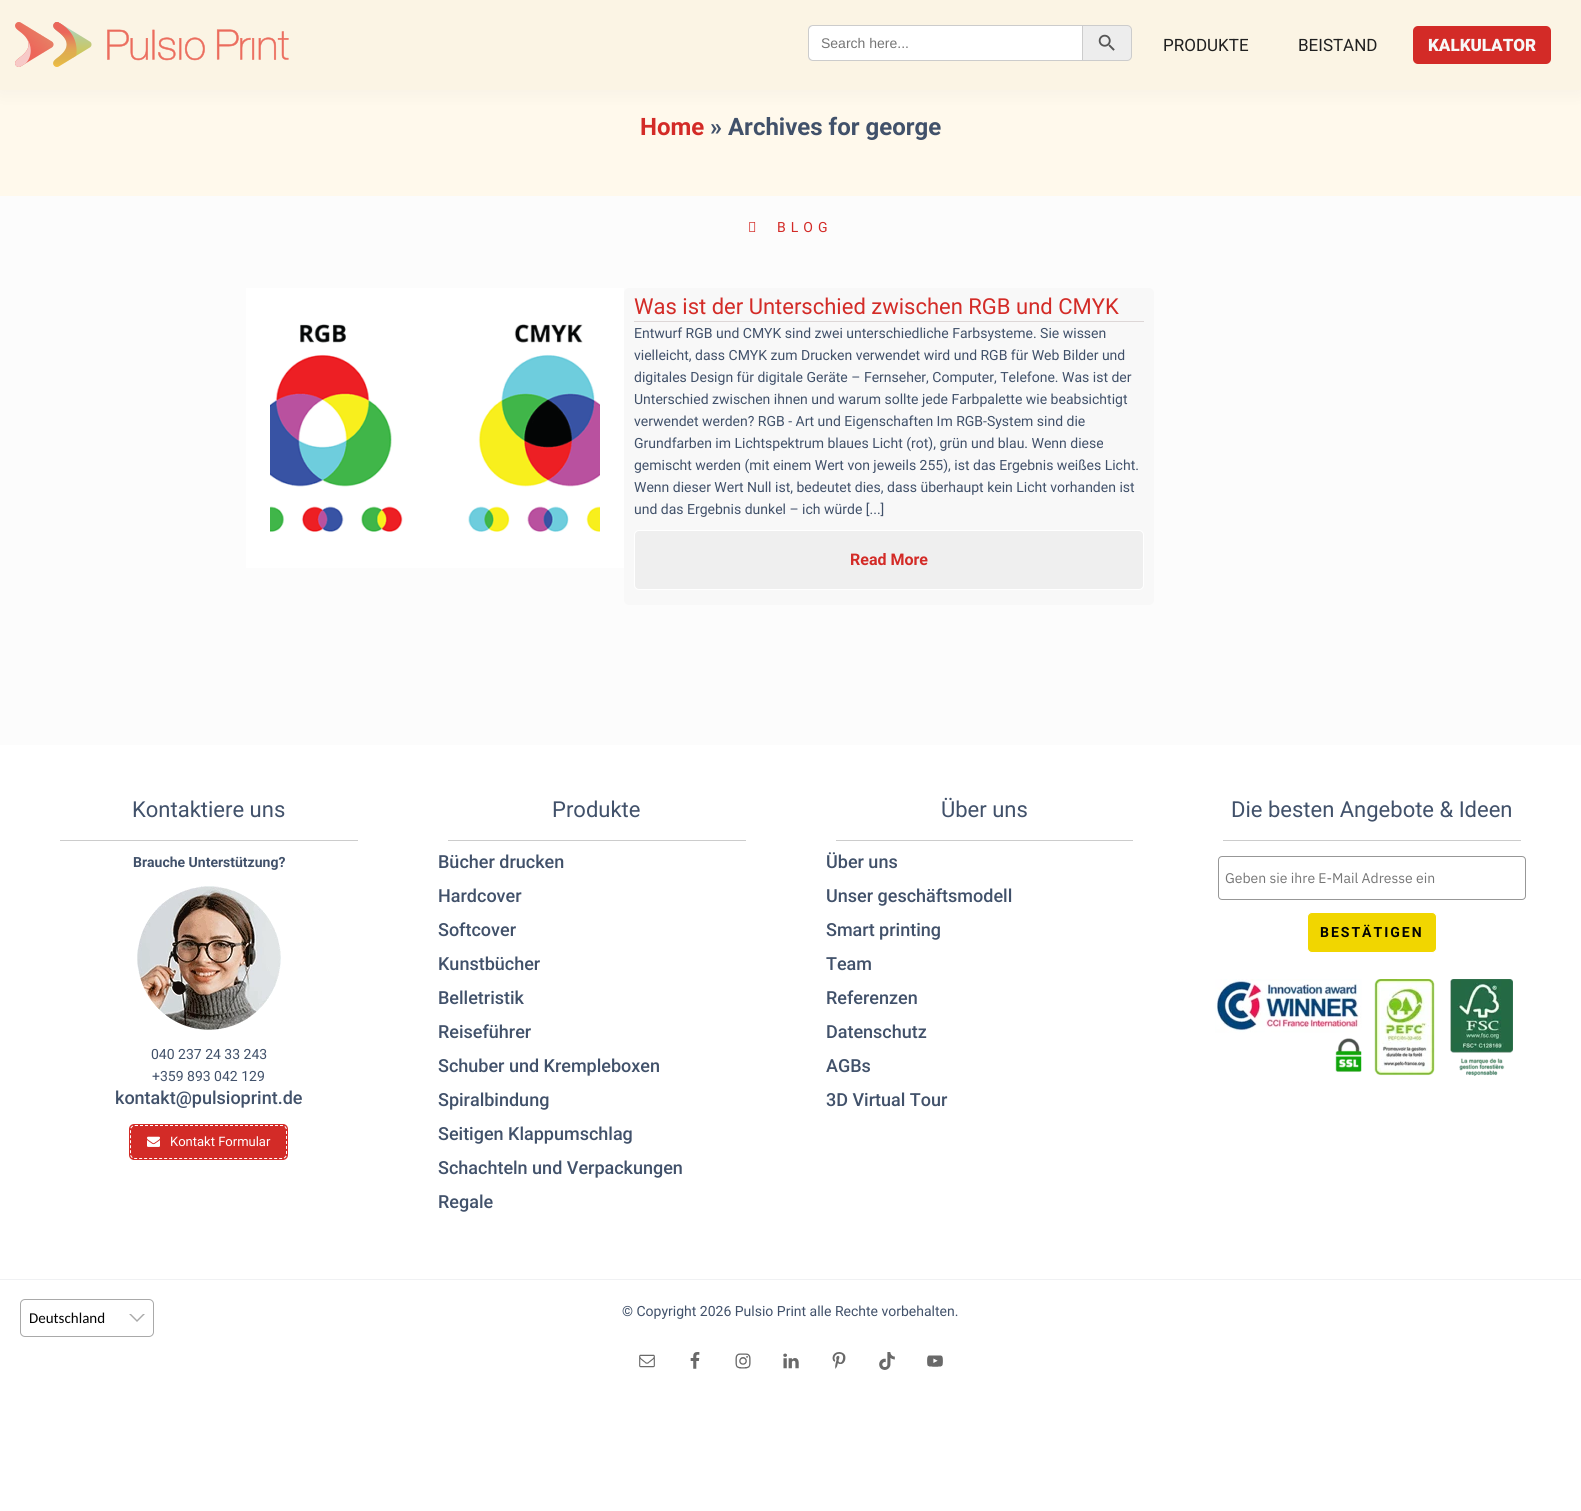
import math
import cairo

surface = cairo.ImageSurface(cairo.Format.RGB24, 1581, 1511)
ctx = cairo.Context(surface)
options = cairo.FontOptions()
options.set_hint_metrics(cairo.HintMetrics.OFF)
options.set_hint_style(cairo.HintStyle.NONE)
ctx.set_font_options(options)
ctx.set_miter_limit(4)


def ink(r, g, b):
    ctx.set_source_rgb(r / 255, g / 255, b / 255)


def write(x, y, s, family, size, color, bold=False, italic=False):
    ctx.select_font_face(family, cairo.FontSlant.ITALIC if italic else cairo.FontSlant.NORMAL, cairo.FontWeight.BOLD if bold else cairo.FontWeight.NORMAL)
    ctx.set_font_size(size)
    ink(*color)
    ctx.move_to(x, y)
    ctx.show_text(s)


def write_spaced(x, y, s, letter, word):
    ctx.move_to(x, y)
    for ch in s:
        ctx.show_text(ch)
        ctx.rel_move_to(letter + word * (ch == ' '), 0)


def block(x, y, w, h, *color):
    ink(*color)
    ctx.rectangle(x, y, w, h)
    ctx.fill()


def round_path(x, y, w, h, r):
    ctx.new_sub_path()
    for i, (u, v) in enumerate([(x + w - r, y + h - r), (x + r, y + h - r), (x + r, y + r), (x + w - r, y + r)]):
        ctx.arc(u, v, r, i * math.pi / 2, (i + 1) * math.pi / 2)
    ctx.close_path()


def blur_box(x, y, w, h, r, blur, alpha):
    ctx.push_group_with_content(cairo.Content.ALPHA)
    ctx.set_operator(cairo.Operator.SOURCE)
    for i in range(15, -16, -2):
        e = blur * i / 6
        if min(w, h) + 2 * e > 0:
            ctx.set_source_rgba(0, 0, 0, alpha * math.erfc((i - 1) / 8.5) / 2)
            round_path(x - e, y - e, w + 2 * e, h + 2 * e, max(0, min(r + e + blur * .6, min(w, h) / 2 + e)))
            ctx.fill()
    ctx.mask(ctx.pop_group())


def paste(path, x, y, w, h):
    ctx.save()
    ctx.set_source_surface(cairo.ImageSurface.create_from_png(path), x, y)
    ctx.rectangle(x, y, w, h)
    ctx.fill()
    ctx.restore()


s1 = dict(family="Liberation Sans", size=14, color=(117, 117, 117))
s2 = dict(family="Roboto", size=17, color=(32, 32, 32))
s3 = dict(family="Roboto Black", size=17, color=(247, 247, 247))
s4 = dict(family="Roboto", size=24, color=(211, 43, 39), bold=True)
s5 = dict(family="Roboto", size=24, color=(65, 81, 106), bold=True)
s6 = dict(family="Roboto", size=22, color=(211, 43, 39))
s7 = dict(family="Roboto", size=14, color=(65, 81, 106))
s8 = dict(family="Roboto", size=16, color=(211, 43, 39), bold=True)
s9 = dict(family="Roboto", size=22, color=(65, 81, 106))
s10 = dict(family="Roboto", size=14, color=(65, 81, 106), bold=True)
s11 = dict(family="Roboto Medium", size=18, color=(65, 81, 106))
s12 = dict(family="Roboto", size=13, color=(255, 255, 255))
s13 = dict(family="IBM Plex Sans", size=14, color=(117, 117, 117))
s14 = dict(family="Carlito", size=15, color=(3, 3, 3))

ink(255, 255, 255)
ctx.paint()
block(0, 90, 1581, 106, 255, 249, 236)
ink(143, 143, 143)
blur_box(0, 0, 1581, 90, 0, 10, 0.1)
block(0, 0, 1581, 90, 251, 244, 228)
paste("pic1.png", 15, 22, 274, 45)
ink(255, 255, 255)
ctx.new_path()
ctx.move_to(813, 25)
ctx.line_to(1082, 25)
ctx.line_to(1082, 61)
ctx.line_to(813, 61)
ctx.curve_to(810, 61, 808, 59, 808, 56)
ctx.line_to(808, 30)
ctx.curve_to(808, 27, 810, 25, 813, 25)
ctx.close_path()
ctx.fill()
ink(204, 204, 204)
ctx.set_fill_rule(cairo.FillRule.EVEN_ODD)
ctx.new_path()
ctx.move_to(813, 25)
ctx.line_to(1082, 25)
ctx.line_to(1082, 61)
ctx.line_to(813, 61)
ctx.curve_to(810, 61, 808, 59, 808, 56)
ctx.line_to(808, 30)
ctx.curve_to(808, 27, 810, 25, 813, 25)
ctx.close_path()
ctx.move_to(813, 26)
ctx.line_to(1082, 26)
ctx.line_to(1082, 60)
ctx.line_to(813, 60)
ctx.curve_to(811, 60, 809, 58, 809, 56)
ctx.line_to(809, 30)
ctx.curve_to(809, 28, 811, 26, 813, 26)
ctx.close_path()
ctx.fill()
write(821, 48, "Search here...", **s1)
ink(237, 237, 237)
ctx.new_path()
ctx.move_to(1082.5, 25.5)
ctx.line_to(1127, 25.5)
ctx.curve_to(1129.5, 25.5, 1131.5, 27.5, 1131.5, 30)
ctx.line_to(1131.5, 56)
ctx.curve_to(1131.5, 58.5, 1129.5, 60.5, 1127, 60.5)
ctx.line_to(1082.5, 60.5)
ctx.close_path()
ctx.fill_preserve()
ink(204, 204, 204)
ctx.set_line_width(1)
ctx.stroke()
paste("pic2.png", 1098, 34, 17, 17)
write(1163, 51, "PRODUKTE", **s2)
write(1298, 51, "BEISTAND", **s2)
ink(211, 43, 39)
round_path(1413, 26, 138, 38, 5)
ctx.fill()
write(1428, 51, "KALKULATOR", **s3)
block(0, 196, 1581, 549, 252, 252, 252)
write(640, 135, "Home", **s4)
write(710, 135, "» Archives for george", **s5)
paste("pic3.png", 749, 222, 7, 10)
ctx.select_font_face("Roboto")
ctx.set_font_size(14)
ink(211, 43, 39)
write_spaced(777, 232, "BLOG", 5, 0)
block(246, 288, 378, 280, 255, 255, 255)
paste("pic4.png", 270, 324, 330, 209)
ink(248, 248, 248)
round_path(624, 288, 530, 317, 5)
ctx.fill()
block(634, 321, 510, 1, 221, 215, 215)
write(634, 314, "Was ist der Unterschied zwischen RGB und CMYK", **s6)
write(634, 338, "Entwurf RGB und CMYK sind zwei unterschiedliche Farbsysteme. Sie wissen", **s7)
write(634, 360, "vielleicht, dass CMYK zum Drucken verwendet wird und RGB für Web Bilder und", **s7)
write(634, 382, "digitales Design für digitale Geräte – Fernseher, Computer, Telefone. Was ist der", **s7)
write(634, 404, "Unterschied zwischen ihnen und warum sollte jede Farbpalette wie beabsichtigt", **s7)
write(634, 426, "verwendet werden? RGB - Art und Eigenschaften Im RGB-System sind die", **s7)
write(634, 448, "Grundfarben im Lichtspektrum blaues Licht (rot), grün und blau. Wenn diese", **s7)
write(634, 470, "gemischt werden (mit einem Wert von jeweils 255), ist das Ergebnis weißes Licht.", **s7)
write(634, 492, "Wenn dieser Wert Null ist, bedeutet dies, dass überhaupt kein Licht vorhanden ist", **s7)
write(634, 514, "und das Ergebnis dunkel – ich würde [...]", **s7)
ink(239, 239, 239)
round_path(634.5, 530.5, 509, 59, 4.5)
ctx.fill_preserve()
ink(255, 255, 255)
ctx.stroke()
write(850, 565, "Read More", **s8)
write(132, 817, "Kontaktiere uns", **s9)
block(60, 840, 298, 1, 204, 204, 204)
write(133, 867, "Brauche Unterstützung?", **s10)
paste("pic5.png", 137, 886, 144, 144)
write(151, 1059, "040 237 24 33 243", **s7)
write(152, 1081, "+359 893 042 129", **s7)
write(115, 1104, "kontakt@pulsioprint.de", **s11)
ink(211, 43, 39)
round_path(129, 1124, 159, 36, 5)
ctx.fill()
ctx.new_path()
ctx.move_to(135, 1125.5)
ctx.line_to(282, 1125.5)
ctx.curve_to(284.5, 1125.5, 286.5, 1127.5, 286.5, 1130)
ctx.line_to(286.5, 1154)
ctx.curve_to(286.5, 1156.5, 284.5, 1158.5, 282, 1158.5)
ctx.line_to(135, 1158.5)
ctx.curve_to(132.5, 1158.5, 130.5, 1156.5, 130.5, 1154)
ctx.line_to(130.5, 1130)
ctx.curve_to(130.5, 1127.5, 132.5, 1125.5, 135, 1125.5)
ctx.close_path()
ink(255, 255, 255)
ctx.set_dash([3, 2])
ctx.stroke()
paste("pic6.png", 147, 1136, 13, 11)
write(170, 1146, "Kontakt Formular", **s12)
write(552, 817, "Produkte", **s9)
block(448, 840, 298, 1, 204, 204, 204)
write(438, 868, "Bücher drucken", **s11)
write(438, 902, "Hardcover", **s11)
write(438, 936, "Softcover", **s11)
write(438, 970, "Kunstbücher", **s11)
write(438, 1004, "Belletristik", **s11)
write(438, 1038, "Reiseführer", **s11)
write(438, 1072, "Schuber und Krempleboxen", **s11)
write(438, 1106, "Spiralbindung", **s11)
write(438, 1140, "Seitigen Klappumschlag", **s11)
write(438, 1174, "Schachteln und Verpackungen", **s11)
write(438, 1208, "Regale", **s11)
write(941, 817, "Über uns", **s9)
block(836, 840, 297, 1, 204, 204, 204)
write(826, 868, "Über uns", **s11)
write(826, 902, "Unser geschäftsmodell", **s11)
write(826, 936, "Smart printing", **s11)
write(826, 970, "Team", **s11)
write(826, 1004, "Referenzen", **s11)
write(826, 1038, "Datenschutz", **s11)
write(826, 1072, "AGBs", **s11)
write(826, 1106, "3D Virtual Tour", **s11)
write(1231, 817, "Die besten Angebote & Ideen", **s9)
block(1223, 840, 298, 1, 204, 204, 204)
round_path(1218.5, 856.5, 307, 43, 3.5)
ink(151, 151, 151)
ctx.set_dash([])
ctx.stroke()
write(1225, 883, "Geben sie ihre E-Mail Adresse ein", **s13)
ink(241, 214, 0)
round_path(1307.5, 912.5, 129, 40, 4.5)
ctx.fill_preserve()
ink(255, 255, 255)
ctx.stroke()
ctx.select_font_face("Roboto", cairo.FontSlant.NORMAL, cairo.FontWeight.BOLD)
ink(3, 3, 3)
write_spaced(1320, 937, "BESTÄTIGEN", 2, 0)
paste("pic7.png", 1215, 979, 298, 97)
round_path(20.5, 1299.5, 133, 37, 4.5)
ink(169, 169, 169)
ctx.stroke()
write(29, 1323, "Deutschland", **s14)
ink(169, 169, 169)
ctx.set_fill_rule(cairo.FillRule.WINDING)
ctx.new_path()
ctx.move_to(129, 1314)
ctx.line_to(145, 1314)
ctx.line_to(137, 1322)
ctx.close_path()
ctx.fill()
ink(255, 255, 255)
ctx.new_path()
ctx.move_to(129, 1312)
ctx.line_to(145, 1312)
ctx.line_to(137, 1320)
ctx.close_path()
ctx.fill()
block(0, 1279, 1581, 1, 240, 241, 243)
write(622, 1316, "© Copyright 2026 Pulsio Print alle Rechte vorbehalten.", **s7)
paste("pic8.png", 639, 1354, 16, 14)
paste("pic9.png", 690, 1352, 10, 17)
paste("pic10.png", 735, 1353, 16, 16)
paste("pic11.png", 783, 1353, 16, 16)
paste("pic12.png", 832, 1352, 14, 17)
paste("pic13.png", 879, 1352, 16, 18)
paste("pic14.png", 927, 1355, 16, 12)
surface.write_to_png("screenshot.png")
